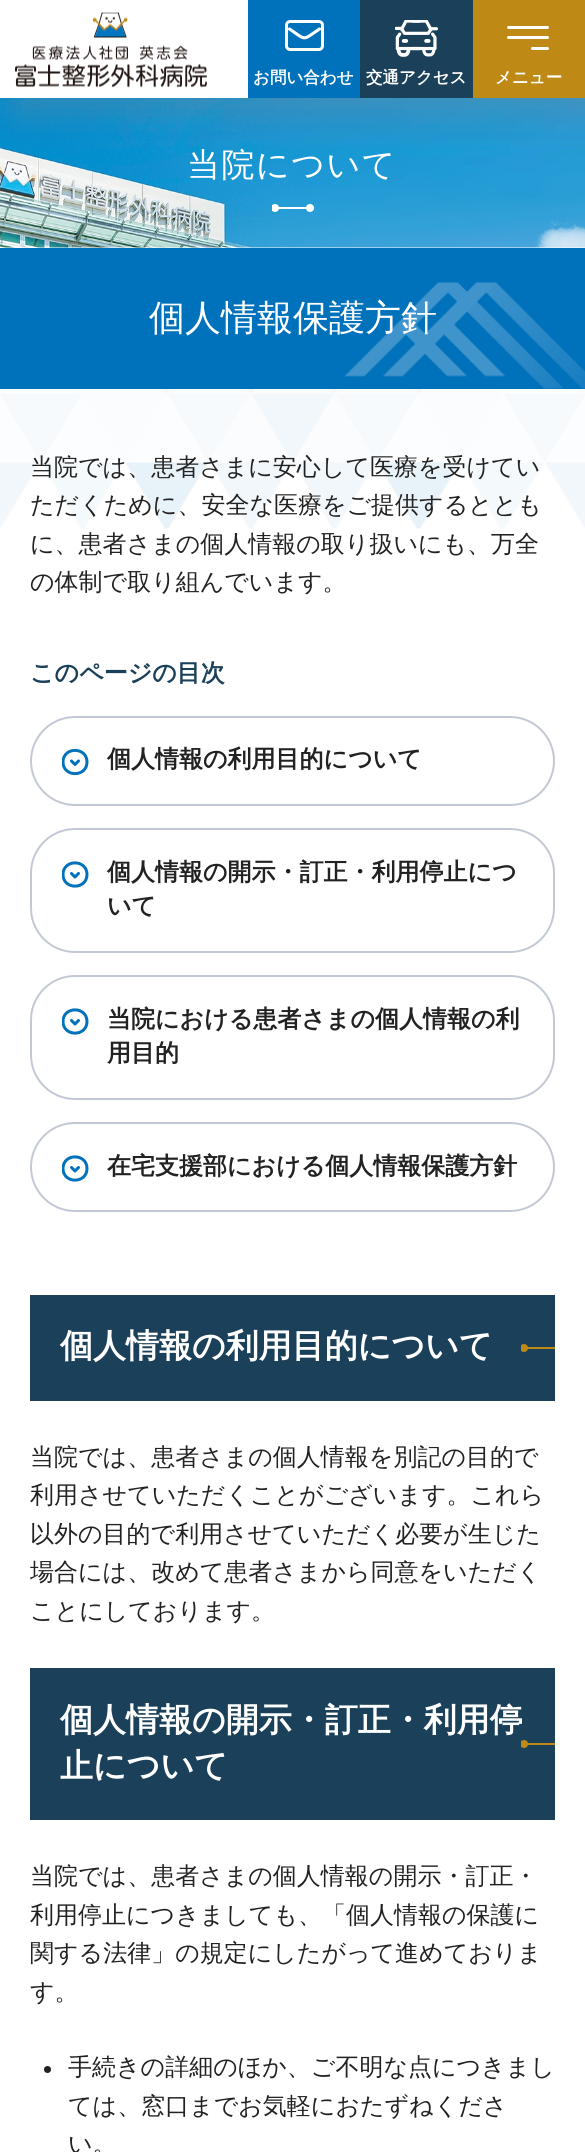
import math
import cairo

surface = cairo.ImageSurface(cairo.Format.RGB24, 585, 2152)
ctx = cairo.Context(surface)
options = cairo.FontOptions()
options.set_hint_metrics(cairo.HintMetrics.OFF)
options.set_hint_style(cairo.HintStyle.NONE)
ctx.set_font_options(options)
ctx.set_miter_limit(4)


def ink(r, g, b):
    ctx.set_source_rgb(r / 255, g / 255, b / 255)


def write(x, y, s, family, size, color, bold=False, italic=False):
    ctx.select_font_face(family, cairo.FontSlant.ITALIC if italic else cairo.FontSlant.NORMAL, cairo.FontWeight.BOLD if bold else cairo.FontWeight.NORMAL)
    ctx.set_font_size(size)
    ink(*color)
    ctx.move_to(x, y)
    ctx.show_text(s)


def write_spaced(x, y, s, letter, word):
    ctx.move_to(x, y)
    for ch in s:
        ctx.show_text(ch)
        ctx.rel_move_to(letter + word * (ch == ' '), 0)


def block(x, y, w, h, *color):
    ink(*color)
    ctx.rectangle(x, y, w, h)
    ctx.fill()


def round_path(x, y, w, h, r):
    ctx.new_sub_path()
    for i, (u, v) in enumerate([(x + w - r, y + h - r), (x + r, y + h - r), (x + r, y + r), (x + w - r, y + r)]):
        ctx.arc(u, v, r, i * math.pi / 2, (i + 1) * math.pi / 2)
    ctx.close_path()


def blur_box(x, y, w, h, r, blur, alpha):
    ctx.push_group_with_content(cairo.Content.ALPHA)
    ctx.set_operator(cairo.Operator.SOURCE)
    for i in range(15, -16, -2):
        e = blur * i / 6
        if min(w, h) + 2 * e > 0:
            ctx.set_source_rgba(0, 0, 0, alpha * math.erfc((i - 1) / 8.5) / 2)
            round_path(x - e, y - e, w + 2 * e, h + 2 * e, max(0, min(r + e + blur * .6, min(w, h) / 2 + e)))
            ctx.fill()
    ctx.mask(ctx.pop_group())


def paste(path, x, y, w, h):
    ctx.save()
    ctx.set_source_surface(cairo.ImageSurface.create_from_png(path), x, y)
    ctx.rectangle(x, y, w, h)
    ctx.fill()
    ctx.restore()


s1 = dict(family="WenQuanYi Zen Hei", size=16.5, color=(255, 255, 255), bold=True)
s2 = dict(family="WenQuanYi Zen Hei Medium", size=36, color=(255, 255, 255))
s3 = dict(family="WenQuanYi Zen Hei Medium", size=24, color=(34, 34, 34))
s4 = dict(family="WenQuanYi Zen Hei", size=24, color=(27, 64, 89), bold=True)
s5 = dict(family="WenQuanYi Zen Hei", size=24, color=(34, 34, 34), bold=True)
s6 = dict(family="WenQuanYi Zen Hei", size=33, color=(255, 255, 255), bold=True)

ink(255, 255, 255)
ctx.paint()
paste("pic3.png", 0, 98, 585, 150)
ink(132, 132, 142)
blur_box(15, 15, 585, 98, 0, 22.5, 0.4)
block(0, 0, 248, 98, 255, 255, 255)
paste("pic1.png", 15, 12, 192, 76)
block(248, 0, 112, 98, 0, 113, 187)
round_path(286.5, 21.5, 36, 28, 3.5)
ink(255, 255, 255)
ctx.set_line_width(3)
ctx.stroke()
ctx.new_path()
ctx.move_to(289.5, 29)
ctx.curve_to(307, 41, 302, 40.5, 319.5, 29)
ctx.set_line_width(3.1)
ctx.set_line_cap(cairo.LineCap.ROUND)
ctx.set_line_join(cairo.LineJoin.ROUND)
ctx.stroke()
write(253, 83, "お問い合わせ", **s1)
block(360, 0, 113, 98, 27, 64, 89)
paste("pic2.png", 395, 20, 43, 37)
write(366, 83, "交通アクセス", **s1)
block(473, 0, 112, 98, 190, 137, 20)
ink(255, 255, 255)
round_path(507, 26, 42, 3, 1.5)
ctx.fill()
round_path(507, 36, 42, 3, 1.5)
ctx.fill()
round_path(531, 47, 18, 3, 1.5)
ctx.fill()
write(495, 83, "メニュー", **s1)
ctx.save()
ctx.rectangle(272, 204, 42, 8)
ctx.clip()
ctx.arc(275, 208, 4, 0, 2 * math.pi)
ctx.fill()
ctx.restore()
ctx.arc(310, 208, 4, 0, 2 * math.pi)
ctx.fill()
block(276, 207, 35, 2, 255, 255, 255)
ctx.select_font_face("WenQuanYi Zen Hei Medium")
ctx.set_font_size(33)
write_spaced(187, 176, "当院について", 1.5, 0)
paste("pic4.png", 0, 389, 585, 140)
block(0, 248, 585, 141, 0, 113, 187)
paste("pic5.png", 345, 282, 240, 107)
write(149, 330, "個人情報保護方針", **s2)
write(30, 475, "当院では、患者さまに安心して医療を受けてい", **s3)
write(30, 513, "ただくために、安全な医療をご提供するととも", **s3)
write(30, 552, "に、患者さまの個人情報の取り扱いにも、万全", **s3)
write(30, 590, "の体制で取り組んでいます。", **s3)
write(30, 681, "このページの目次", **s4)
ctx.save()
ctx.rectangle(62, 749, 27, 27)
ctx.clip()
ctx.new_path()
ctx.move_to(87, 762)
ctx.curve_to(87, 777.5, 63, 777.5, 63, 762)
ctx.curve_to(63, 746.5, 87, 746.5, 87, 762)
ctx.close_path()
ink(0, 113, 187)
ctx.set_line_width(3)
ctx.set_line_cap(cairo.LineCap.BUTT)
ctx.set_line_join(cairo.LineJoin.MITER)
ctx.stroke()
ctx.restore()
ctx.new_path()
ctx.move_to(78.5, 761)
ctx.line_to(75, 764.5)
ctx.line_to(71.5, 761)
ink(0, 113, 187)
ctx.set_line_width(3)
ctx.stroke()
round_path(31, 717, 523, 88, 44)
ink(195, 201, 212)
ctx.set_line_width(2)
ctx.set_line_cap(cairo.LineCap.BUTT)
ctx.set_line_join(cairo.LineJoin.MITER)
ctx.stroke()
write(107, 767, "個人情報の利用目的について", **s5)
ctx.save()
ctx.rectangle(62, 861, 27, 27)
ctx.clip()
ctx.new_path()
ctx.move_to(87, 874.5)
ctx.curve_to(87, 890, 63, 890, 63, 874.5)
ctx.curve_to(63, 859, 87, 859, 87, 874.5)
ctx.close_path()
ink(0, 113, 187)
ctx.set_line_width(3)
ctx.stroke()
ctx.restore()
ctx.new_path()
ctx.move_to(78.5, 873.5)
ctx.line_to(75, 877)
ctx.line_to(71.5, 873.5)
ink(0, 113, 187)
ctx.set_line_width(3)
ctx.set_line_cap(cairo.LineCap.ROUND)
ctx.set_line_join(cairo.LineJoin.ROUND)
ctx.stroke()
round_path(31, 829, 523, 123, 44)
ink(195, 201, 212)
ctx.set_line_width(2)
ctx.set_line_cap(cairo.LineCap.BUTT)
ctx.set_line_join(cairo.LineJoin.MITER)
ctx.stroke()
write(107, 880, "個人情報の開示・訂正・利用停止につ", **s5)
write(107, 914, "いて", **s5)
ctx.save()
ctx.rectangle(62, 1008, 27, 27)
ctx.clip()
ctx.new_path()
ctx.move_to(87, 1021.5)
ctx.curve_to(87, 1037, 63, 1037, 63, 1021.5)
ctx.curve_to(63, 1006, 87, 1006, 87, 1021.5)
ctx.close_path()
ink(0, 113, 187)
ctx.set_line_width(3)
ctx.stroke()
ctx.restore()
ctx.new_path()
ctx.move_to(78.5, 1020.5)
ctx.line_to(75, 1024)
ctx.line_to(71.5, 1020.5)
ink(0, 113, 187)
ctx.set_line_width(3)
ctx.set_line_cap(cairo.LineCap.ROUND)
ctx.set_line_join(cairo.LineJoin.ROUND)
ctx.stroke()
round_path(31, 976, 523, 123, 44)
ink(195, 201, 212)
ctx.set_line_width(2)
ctx.set_line_cap(cairo.LineCap.BUTT)
ctx.set_line_join(cairo.LineJoin.MITER)
ctx.stroke()
write(107, 1027, "当院における患者さまの個人情報の利", **s5)
write(107, 1061, "用目的", **s5)
ctx.save()
ctx.rectangle(62, 1155, 27, 27)
ctx.clip()
ctx.new_path()
ctx.move_to(87, 1168.5)
ctx.curve_to(87, 1184, 63, 1184, 63, 1168.5)
ctx.curve_to(63, 1153, 87, 1153, 87, 1168.5)
ctx.close_path()
ink(0, 113, 187)
ctx.set_line_width(3)
ctx.stroke()
ctx.restore()
ctx.new_path()
ctx.move_to(78.5, 1167.5)
ctx.line_to(75, 1171)
ctx.line_to(71.5, 1167.5)
ink(0, 113, 187)
ctx.set_line_width(3)
ctx.set_line_cap(cairo.LineCap.ROUND)
ctx.set_line_join(cairo.LineJoin.ROUND)
ctx.stroke()
round_path(31, 1123, 523, 88, 44)
ink(195, 201, 212)
ctx.set_line_width(2)
ctx.set_line_cap(cairo.LineCap.BUTT)
ctx.set_line_join(cairo.LineJoin.MITER)
ctx.stroke()
write(107, 1174, "在宅支援部における個人情報保護方針", **s5)
block(30, 1295, 525, 106, 27, 64, 89)
ctx.save()
ctx.rectangle(521, 1344, 34, 8)
ctx.clip()
ink(190, 137, 20)
ctx.arc(524, 1348, 4, 0, 2 * math.pi)
ctx.fill()
ctx.restore()
block(521, 1347, 34, 2, 190, 137, 20)
write(60, 1357, "個人情報の利用目的について", **s6)
write(30, 1465, "当院では、患者さまの個人情報を別記の目的で", **s3)
write(30, 1503, "利用させていただくことがございます。これら", **s3)
write(30, 1542, "以外の目的で利用させていただく必要が生じた", **s3)
write(30, 1580, "場合には、改めて患者さまから同意をいただく", **s3)
write(30, 1619, "ことにしております。", **s3)
block(30, 1668, 525, 152, 27, 64, 89)
ctx.save()
ctx.rectangle(521, 1740, 34, 8)
ctx.clip()
ink(190, 137, 20)
ctx.arc(524, 1744, 4, 0, 2 * math.pi)
ctx.fill()
ctx.restore()
block(521, 1743, 34, 2, 190, 137, 20)
write(60, 1731, "個人情報の開示・訂正・利用停", **s6)
write(60, 1777, "止について", **s6)
write(30, 1884, "当院では、患者さまの個人情報の開示・訂正・", **s3)
write(30, 1923, "利用停止につきましても、「個人情報の保護に", **s3)
write(30, 1961, "関する法律」の規定にしたがって進めておりま", **s3)
write(30, 2000, "す。", **s3)
ctx.new_path()
ctx.arc(47.5, 2069.5, 3.5, 0, 2 * math.pi)
ctx.fill()
write(68, 2075, "手続きの詳細のほか、ご不明な点につきまし", **s3)
write(68, 2114, "ては、窓口までお気軽におたずねくださ", **s3)
write(68, 2152, "い。", **s3)
surface.write_to_png("screenshot.png")
